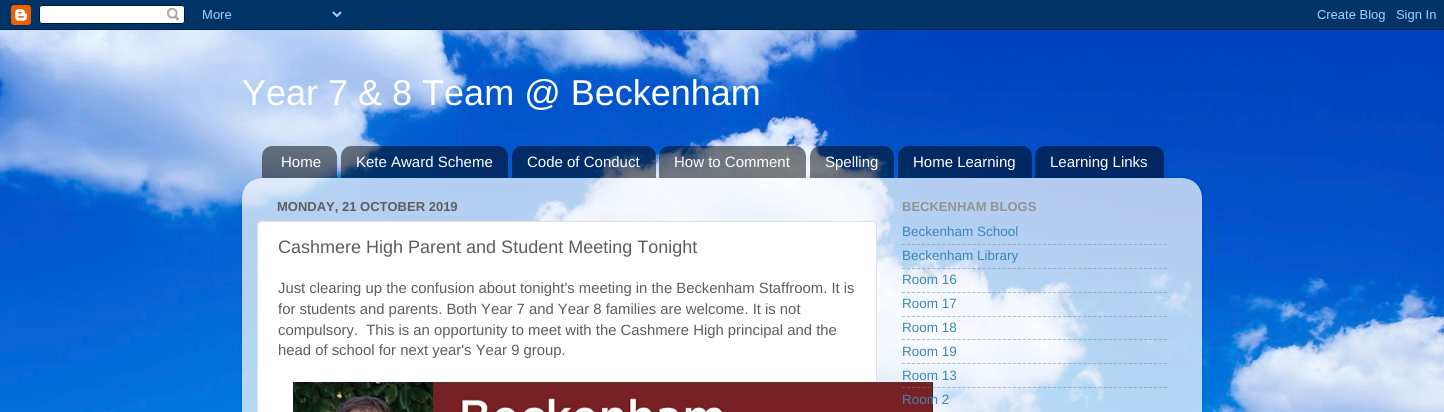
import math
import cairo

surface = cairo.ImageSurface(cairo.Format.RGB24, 1444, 412)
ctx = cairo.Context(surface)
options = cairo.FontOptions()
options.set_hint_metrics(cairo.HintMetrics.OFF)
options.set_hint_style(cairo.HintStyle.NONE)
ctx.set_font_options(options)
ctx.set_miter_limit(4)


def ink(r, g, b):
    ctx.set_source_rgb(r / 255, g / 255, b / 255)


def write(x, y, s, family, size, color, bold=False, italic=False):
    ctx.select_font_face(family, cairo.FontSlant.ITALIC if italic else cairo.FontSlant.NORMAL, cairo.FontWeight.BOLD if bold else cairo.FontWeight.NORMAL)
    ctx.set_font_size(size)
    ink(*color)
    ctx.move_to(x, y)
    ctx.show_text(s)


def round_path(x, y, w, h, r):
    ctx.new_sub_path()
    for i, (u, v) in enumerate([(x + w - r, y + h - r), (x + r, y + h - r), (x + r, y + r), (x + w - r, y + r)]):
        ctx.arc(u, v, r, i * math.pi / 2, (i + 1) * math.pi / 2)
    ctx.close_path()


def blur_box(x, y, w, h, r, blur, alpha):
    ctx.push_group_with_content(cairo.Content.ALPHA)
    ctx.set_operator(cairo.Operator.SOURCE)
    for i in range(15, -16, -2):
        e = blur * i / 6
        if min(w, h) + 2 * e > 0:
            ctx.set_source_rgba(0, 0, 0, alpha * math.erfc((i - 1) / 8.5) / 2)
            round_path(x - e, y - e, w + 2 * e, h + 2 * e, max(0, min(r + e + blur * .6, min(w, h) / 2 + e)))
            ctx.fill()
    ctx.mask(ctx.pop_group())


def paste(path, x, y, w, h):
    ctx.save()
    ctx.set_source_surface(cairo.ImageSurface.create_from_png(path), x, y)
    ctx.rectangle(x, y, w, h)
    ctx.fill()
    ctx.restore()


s1 = dict(family="Liberation Sans", size=36, color=(255, 255, 255))
s2 = dict(family="Liberation Sans", size=15, color=(255, 255, 255))
s3 = dict(family="Liberation Sans", size=13, color=(93, 93, 93), bold=True)
s4 = dict(family="Liberation Sans", size=18, color=(93, 93, 93))
s5 = dict(family="Liberation Sans", size=14.85, color=(93, 93, 93))
s6 = dict(family="Liberation Sans", size=13, color=(147, 147, 147), bold=True)
s7 = dict(family="Liberation Sans", size=13.5, color=(60, 135, 180))

ink(255, 255, 255)
ctx.paint()
paste("pic1.png", 0, 30, 1444, 382)
paste("pic2.png", 0, 0, 1444, 30)
write(242, 105, "Year 7 & 8 Team @ Beckenham", **s1)
paste("pic3.png", 262, 146, 75, 32)
write(281, 167, "Home", **s2)
paste("pic4.png", 341, 146, 167, 32)
write(356, 167, "Kete Award Scheme", **s2)
paste("pic5.png", 512, 146, 144, 32)
write(527, 167, "Code of Conduct", **s2)
paste("pic6.png", 659, 146, 147, 32)
write(674, 167, "How to Comment", **s2)
paste("pic7.png", 810, 146, 84, 32)
write(825, 167, "Spelling", **s2)
paste("pic8.png", 898, 146, 134, 32)
write(913, 167, "Home Learning", **s2)
paste("pic9.png", 1035, 146, 129, 32)
write(1050, 167, "Learning Links", **s2)
ctx.save()
ctx.set_fill_rule(cairo.FillRule.EVEN_ODD)
ctx.new_path()
ctx.move_to(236, 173)
ctx.line_to(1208, 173)
ctx.line_to(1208, 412)
ctx.line_to(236, 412)
ctx.close_path()
ctx.move_to(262, 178)
ctx.line_to(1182, 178)
ctx.curve_to(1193, 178, 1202, 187, 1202, 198)
ctx.line_to(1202, 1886)
ctx.line_to(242, 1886)
ctx.line_to(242, 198)
ctx.curve_to(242, 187, 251, 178, 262, 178)
ctx.close_path()
ctx.clip()
ink(0, 0, 0)
blur_box(242, 179, 960, 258, 20, 1.5, 0.15)
ctx.restore()
paste("pic10.png", 242, 178, 960, 234)
write(277, 211, "MONDAY, 21 OCTOBER 2019", **s3)
ink(255, 255, 255)
round_path(257.5, 221.5, 619, 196, 4.5)
ctx.fill_preserve()
ink(225, 225, 225)
ctx.set_line_width(1)
ctx.stroke()
write(278, 253, "Cashmere High Parent and Student Meeting Tonight", **s4)
write(278, 293, "Just clearing up the confusion about tonight's meeting in the Beckenham Staffroom. It is", **s5)
write(278, 314, "for students and parents. Both Year 7 and Year 8 families are welcome. It is not", **s5)
write(278, 335, "compulsory.  This is an opportunity to meet with the Cashmere High principal and the", **s5)
write(278, 355, "head of school for next year's Year 9 group.", **s5)
paste("pic11.png", 293, 382, 640, 30)
write(902, 211, "BECKENHAM BLOGS", **s6)
write(902, 236, "Beckenham School", **s7)
ctx.new_path()
ctx.move_to(902, 244.5)
ctx.line_to(1167, 244.5)
ctx.set_source_rgba(0.502, 0.502, 0.502, 0.5)
ctx.set_dash([3, 2.04])
ctx.stroke()
write(902, 260, "Beckenham Library", **s7)
ctx.new_path()
ctx.move_to(902, 268.5)
ctx.line_to(1167, 268.5)
ctx.set_source_rgba(0.502, 0.502, 0.502, 0.5)
ctx.stroke()
write(902, 284, "Room 16", **s7)
ctx.new_path()
ctx.move_to(902, 292.5)
ctx.line_to(1167, 292.5)
ctx.set_source_rgba(0.502, 0.502, 0.502, 0.5)
ctx.stroke()
write(902, 308, "Room 17", **s7)
ctx.new_path()
ctx.move_to(902, 316.5)
ctx.line_to(1167, 316.5)
ctx.set_source_rgba(0.502, 0.502, 0.502, 0.5)
ctx.stroke()
write(902, 332, "Room 18", **s7)
ctx.new_path()
ctx.move_to(902, 339.5)
ctx.line_to(1167, 339.5)
ctx.set_source_rgba(0.502, 0.502, 0.502, 0.5)
ctx.stroke()
write(902, 356, "Room 19", **s7)
ctx.new_path()
ctx.move_to(902, 363.5)
ctx.line_to(1167, 363.5)
ctx.set_source_rgba(0.502, 0.502, 0.502, 0.5)
ctx.stroke()
write(902, 380, "Room 13", **s7)
ctx.new_path()
ctx.move_to(902, 387.5)
ctx.line_to(1167, 387.5)
ctx.set_source_rgba(0.502, 0.502, 0.502, 0.5)
ctx.stroke()
write(902, 404, "Room 2", **s7)
surface.write_to_png("screenshot.png")
